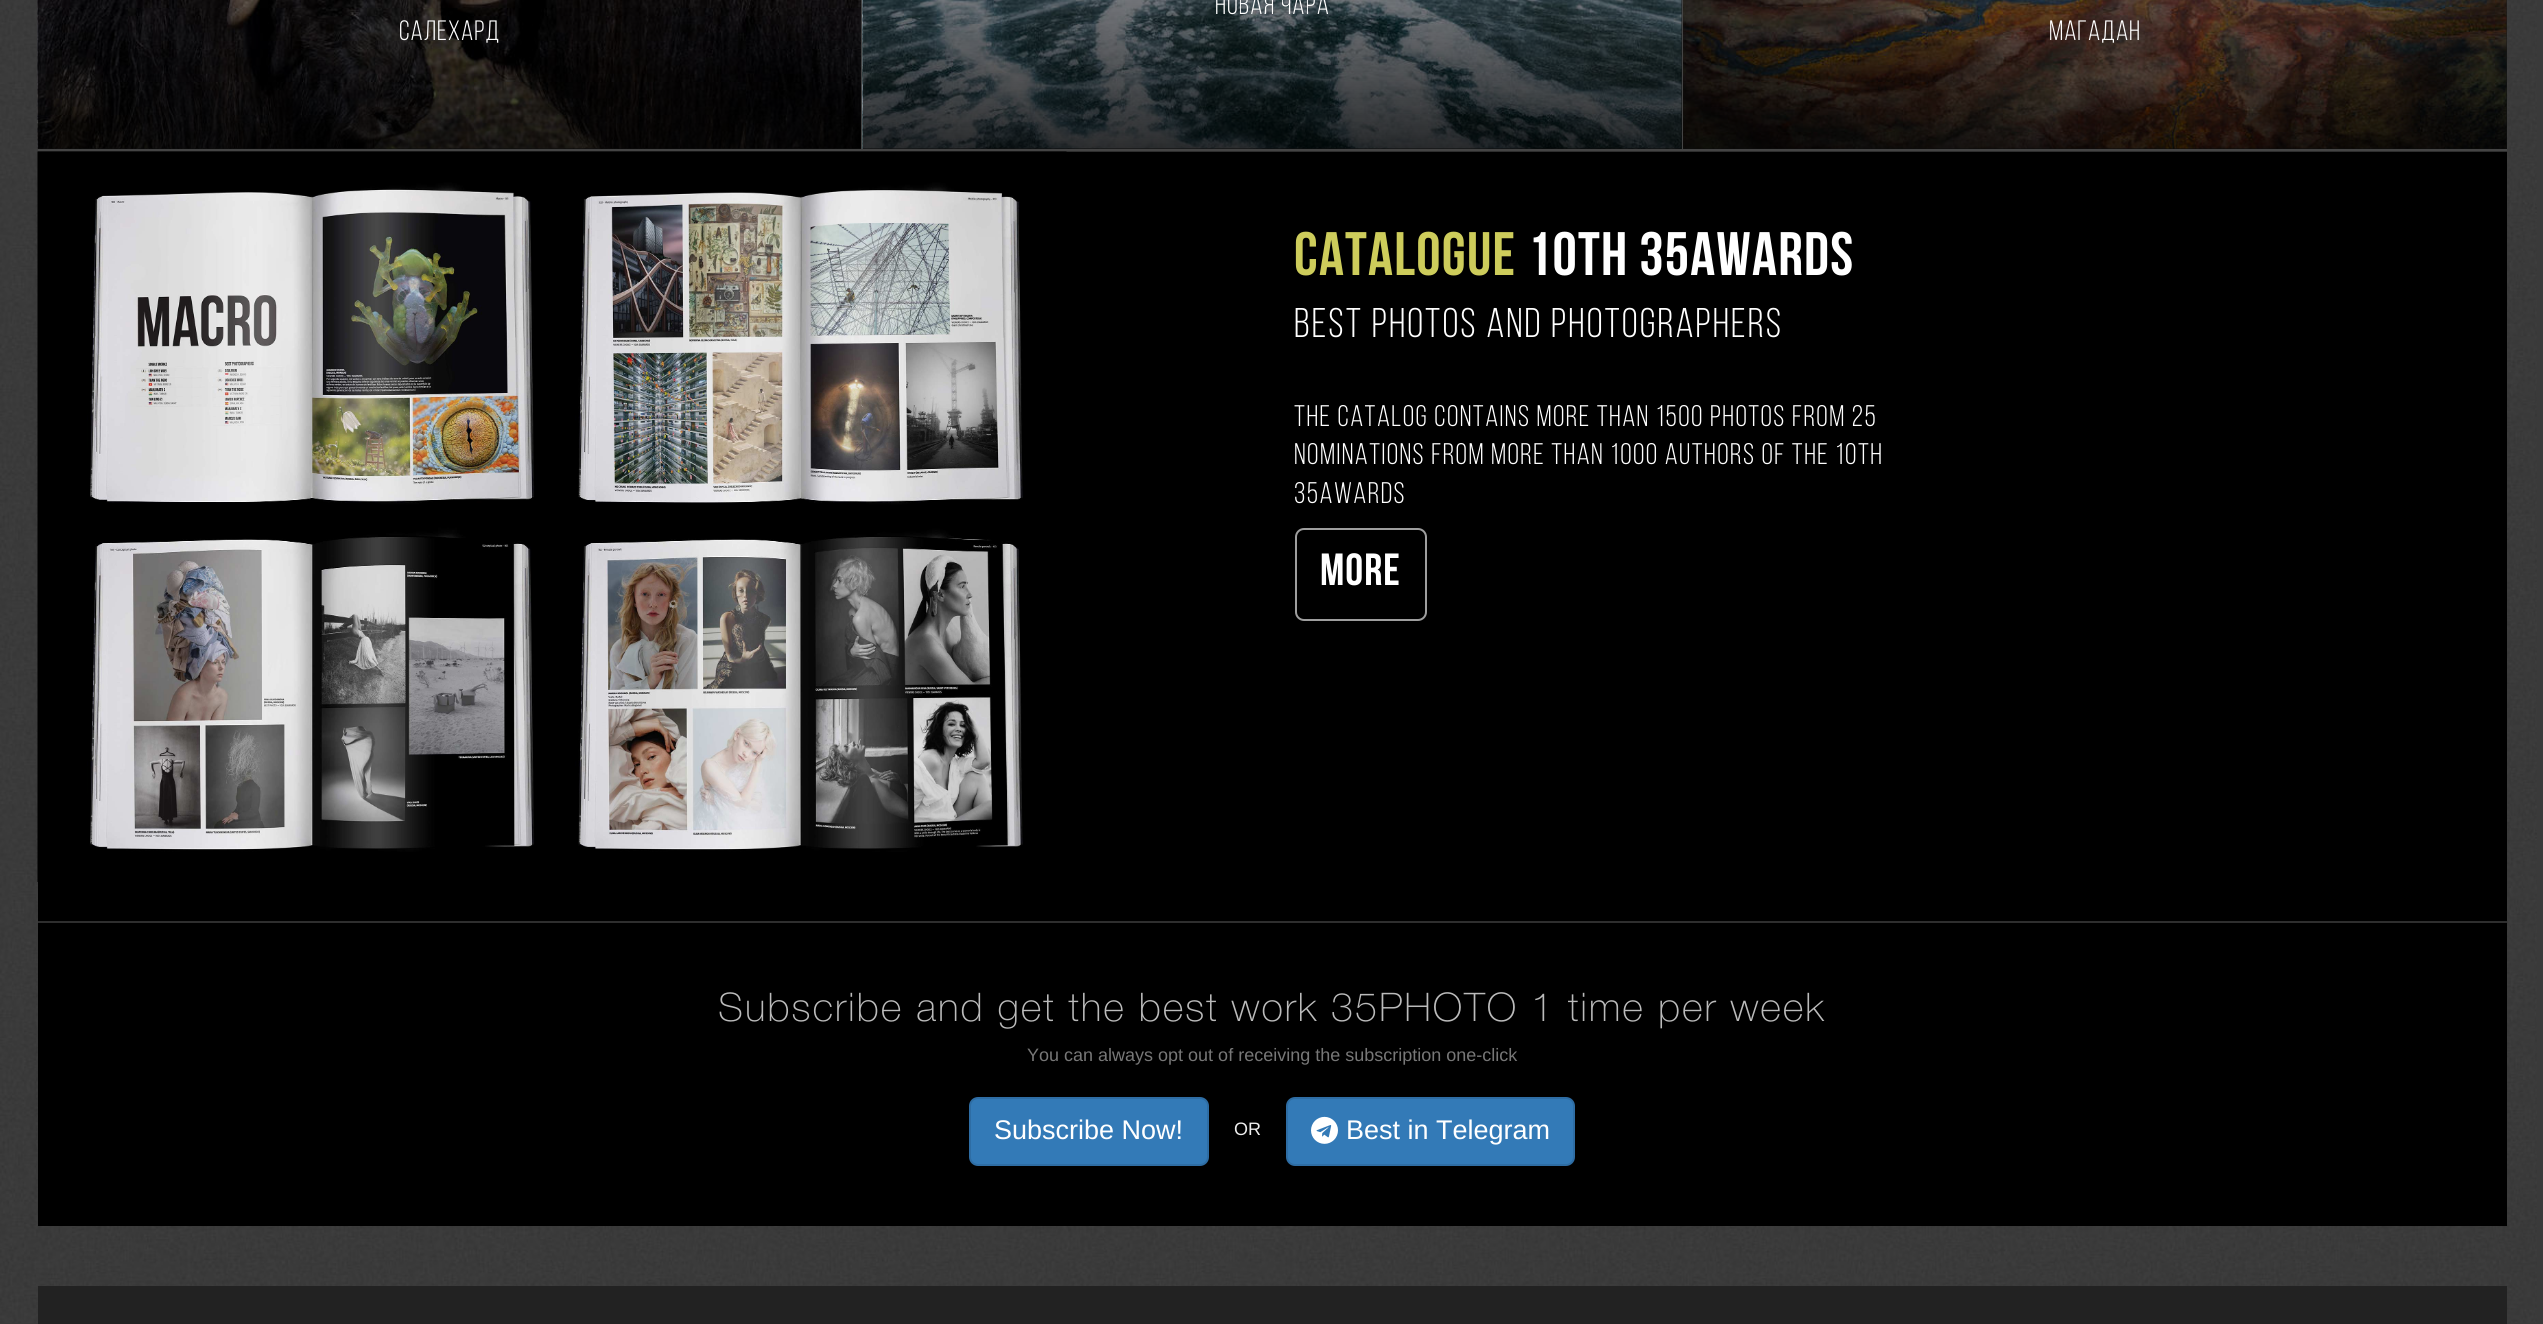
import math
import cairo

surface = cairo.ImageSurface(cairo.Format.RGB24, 2543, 1324)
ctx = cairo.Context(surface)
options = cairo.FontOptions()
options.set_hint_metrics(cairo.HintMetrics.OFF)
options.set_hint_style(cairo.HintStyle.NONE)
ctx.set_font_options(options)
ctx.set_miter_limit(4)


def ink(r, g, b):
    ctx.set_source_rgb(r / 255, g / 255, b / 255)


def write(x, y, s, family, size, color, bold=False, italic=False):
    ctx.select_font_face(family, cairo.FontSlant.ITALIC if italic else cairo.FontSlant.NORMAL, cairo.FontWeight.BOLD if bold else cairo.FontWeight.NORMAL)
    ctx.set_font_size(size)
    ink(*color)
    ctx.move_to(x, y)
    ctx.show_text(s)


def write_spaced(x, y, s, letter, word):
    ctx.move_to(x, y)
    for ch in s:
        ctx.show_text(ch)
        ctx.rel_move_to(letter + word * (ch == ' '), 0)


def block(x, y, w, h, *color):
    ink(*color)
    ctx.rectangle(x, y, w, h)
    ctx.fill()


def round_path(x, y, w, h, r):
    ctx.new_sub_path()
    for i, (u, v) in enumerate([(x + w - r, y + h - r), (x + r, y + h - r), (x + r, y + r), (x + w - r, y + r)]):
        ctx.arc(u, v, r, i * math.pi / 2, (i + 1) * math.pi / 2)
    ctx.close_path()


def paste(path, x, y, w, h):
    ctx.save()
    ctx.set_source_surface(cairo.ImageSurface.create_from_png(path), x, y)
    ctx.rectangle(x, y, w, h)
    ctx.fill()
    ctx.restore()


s1 = dict(family="Liberation Sans", size=18, color=(119, 119, 119))
s2 = dict(family="Liberation Sans", size=27, color=(255, 255, 255))
s3 = dict(family="Liberation Sans", size=18, color=(238, 238, 238))

ink(58, 58, 58)
ctx.paint()
paste("pic1.png", 0, 0, 2537, 1323)
block(1682, 0, 2, 150, 68, 68, 68)
block(861, 149, 1646, 2, 68, 68, 68)
block(861, 0, 2, 150, 68, 68, 68)
paste("pic2.png", 862, 0, 820, 149)
gradient = cairo.LinearGradient(1272, 149, 1272, -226)
gradient.add_color_stop_rgba(0, 0, 0, 0, 0.8)
gradient.add_color_stop_rgba(1, 0, 0, 0, 0)
ctx.set_source(gradient)
ctx.rectangle(863, 0, 819, 149)
ctx.fill()
ctx.select_font_face("Bebas Neue")
ctx.set_font_size(28)
ink(255, 255, 255)
write_spaced(1215, 14, "Новая Чара", 1, 0)
block(38, 149, 823, 2, 68, 68, 68)
paste("pic3.png", 37, 0, 824, 149)
gradient = cairo.LinearGradient(449, 149, 449, -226)
gradient.add_color_stop_rgba(0, 0, 0, 0, 0.8)
gradient.add_color_stop_rgba(1, 0, 0, 0, 0)
ctx.set_source(gradient)
ctx.rectangle(38, 0, 823, 149)
ctx.fill()
ink(255, 255, 255)
write_spaced(399, 40, "Салехард", 1, 0)
paste("pic4.png", 1683, 0, 824, 149)
gradient = cairo.LinearGradient(2095, 149, 2095, -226)
gradient.add_color_stop_rgba(0, 0, 0, 0, 0.8)
gradient.add_color_stop_rgba(1, 0, 0, 0, 0)
ctx.set_source(gradient)
ctx.rectangle(1683, 0, 824, 149)
ctx.fill()
ink(255, 255, 255)
write_spaced(2049, 40, "Магадан", 1, 0)
block(38, 152, 2469, 769, 0, 0, 0)
block(38, 151, 2469, 1, 46, 46, 46)
block(38, 921, 2469, 2, 46, 46, 46)
paste("pic5.png", 37, 151, 1030, 731)
ctx.select_font_face("Bebas Neue", cairo.FontSlant.NORMAL, cairo.FontWeight.BOLD)
ctx.set_font_size(61.25)
ink(205, 204, 91)
write_spaced(1294, 275, "CATALOGUE", 1.25, 0)
ink(255, 255, 255)
write_spaced(1527, 275, "10TH 35AWARDS", 1.25, 0)
ctx.select_font_face("Bebas Neue")
ctx.set_font_size(41.4)
write_spaced(1294, 337, "BEST PHOTOS AND PHOTOGRAPHERS", 2.1, 0)
ctx.set_font_size(29.75)
write_spaced(1294, 426, "The catalog contains more than 1500 photos from 25", 1.48, 0)
write_spaced(1294, 464, "nominations from more than 1000 authors of the 10th", 1.48, 0)
write_spaced(1294, 503, "35AWARDS", 1.48, 0)
round_path(1296, 529, 130, 91, 8)
ink(158, 158, 158)
ctx.stroke()
ctx.select_font_face("Bebas Neue", cairo.FontSlant.NORMAL, cairo.FontWeight.BOLD)
ctx.set_font_size(45)
ink(255, 255, 255)
write_spaced(1320, 585, "More", 1, 0)
block(38, 923, 2469, 303, 0, 0, 0)
ctx.select_font_face("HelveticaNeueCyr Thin")
ctx.set_font_size(39.6)
ink(187, 187, 187)
write_spaced(718, 1021, "Subscribe and get the best work 35PHOTO 1 time per week", 1.98, 0)
write(1027, 1061, "You can always opt out of receiving the subscription one-click", **s1)
ink(51, 122, 183)
round_path(970, 1098, 238, 67, 8)
ctx.fill_preserve()
ink(46, 109, 164)
ctx.stroke()
write(994, 1139, "Subscribe Now!", **s2)
write(1234, 1135, "OR", **s3)
ink(51, 122, 183)
round_path(1287, 1098, 287, 67, 8)
ctx.fill_preserve()
ink(46, 109, 164)
ctx.stroke()
paste("pic6.png", 1311, 1116, 27, 28)
write(1346, 1139, "Best in Telegram", **s2)
block(38, 1286, 2469, 38, 34, 34, 34)
surface.write_to_png("screenshot.png")
